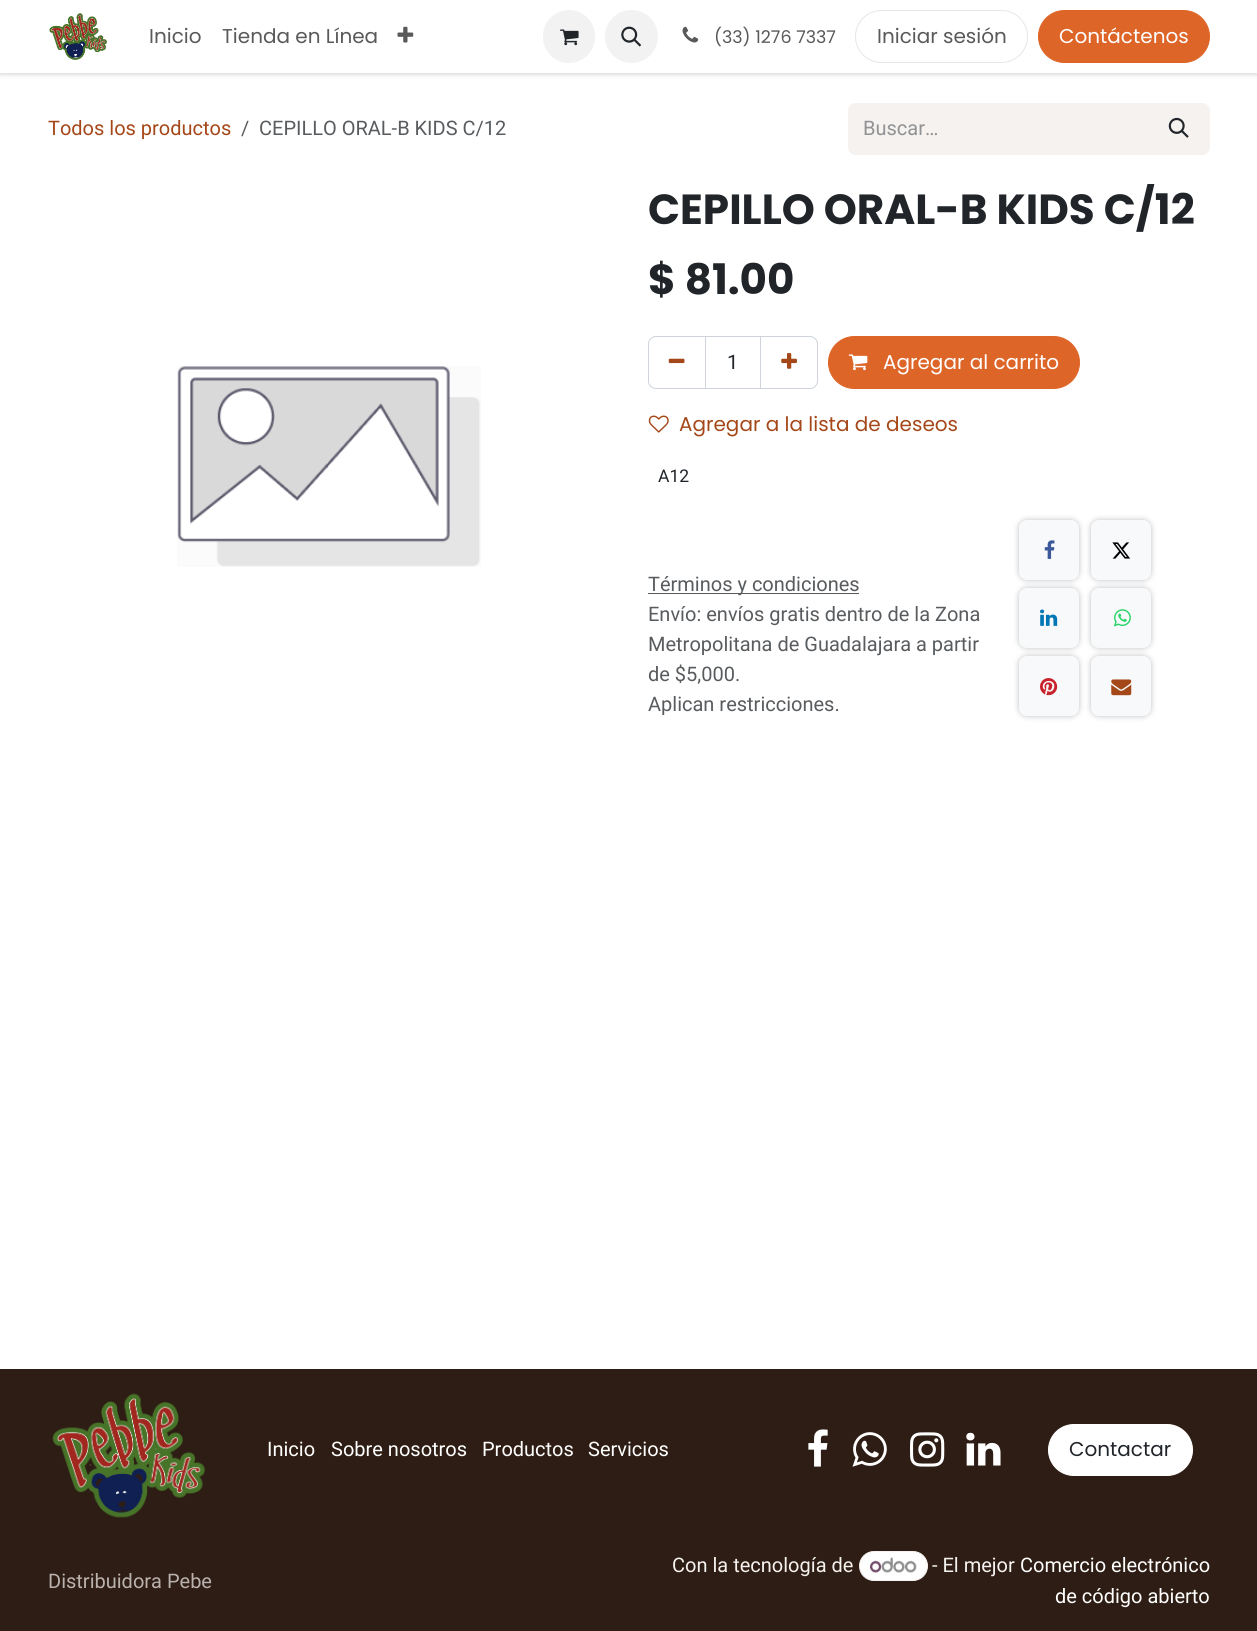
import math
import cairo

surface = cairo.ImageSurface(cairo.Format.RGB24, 1257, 1631)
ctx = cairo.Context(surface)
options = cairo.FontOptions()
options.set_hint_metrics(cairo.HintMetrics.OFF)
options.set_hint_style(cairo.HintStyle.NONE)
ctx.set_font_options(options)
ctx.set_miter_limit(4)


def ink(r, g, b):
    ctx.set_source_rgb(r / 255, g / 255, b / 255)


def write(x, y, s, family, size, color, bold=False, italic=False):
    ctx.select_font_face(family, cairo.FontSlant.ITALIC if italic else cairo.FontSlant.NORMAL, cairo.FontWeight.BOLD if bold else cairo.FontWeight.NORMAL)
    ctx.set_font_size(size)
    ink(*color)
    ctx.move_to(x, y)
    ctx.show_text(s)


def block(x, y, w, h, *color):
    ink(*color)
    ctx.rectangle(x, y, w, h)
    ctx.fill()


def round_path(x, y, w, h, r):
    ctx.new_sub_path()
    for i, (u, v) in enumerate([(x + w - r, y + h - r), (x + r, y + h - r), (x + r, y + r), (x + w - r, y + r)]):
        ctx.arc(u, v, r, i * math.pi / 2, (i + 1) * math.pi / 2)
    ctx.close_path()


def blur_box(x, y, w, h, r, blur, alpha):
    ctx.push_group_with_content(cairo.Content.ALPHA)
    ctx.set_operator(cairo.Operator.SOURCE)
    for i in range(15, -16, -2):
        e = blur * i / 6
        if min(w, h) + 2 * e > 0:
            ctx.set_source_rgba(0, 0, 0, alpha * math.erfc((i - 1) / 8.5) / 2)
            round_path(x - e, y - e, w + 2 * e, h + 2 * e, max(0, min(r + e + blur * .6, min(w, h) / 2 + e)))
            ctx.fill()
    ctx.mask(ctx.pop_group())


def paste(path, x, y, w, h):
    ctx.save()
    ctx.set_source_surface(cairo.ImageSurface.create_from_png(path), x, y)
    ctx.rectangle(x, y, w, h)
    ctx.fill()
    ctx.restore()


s1 = dict(family="Poppins", size=20, color=(89, 89, 89))
s2 = dict(family="Poppins", size=17.5, color=(89, 89, 89))
s3 = dict(family="Poppins", size=20, color=(255, 255, 255))
s4 = dict(family="Roboto", size=20, color=(165, 72, 25))
s5 = dict(family="Roboto", size=20, color=(89, 92, 95))
s6 = dict(family="Roboto", size=20, color=(144, 146, 148))
s7 = dict(family="Poppins", size=42.1, color=(33, 37, 41), bold=True)
s8 = dict(family="Roboto", size=20, color=(33, 37, 41))
s9 = dict(family="Poppins", size=20, color=(165, 72, 25))
s10 = dict(family="Roboto", size=17.5, color=(33, 37, 41))
s11 = dict(family="Roboto", size=20, color=(255, 255, 255))
s12 = dict(family="Poppins", size=20, color=(33, 37, 41))
s13 = dict(family="Roboto", size=20, color=(185, 178, 174))
s14 = dict(family="Roboto", size=20, color=(245, 242, 240))

ink(255, 255, 255)
ctx.paint()
ink(0, 0, 0)
blur_box(0, 0, 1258, 73, 0, 3, 0.25)
block(0, 0, 1257, 73, 255, 255, 255)
paste("pic1.png", 49, 13, 58, 47)
write(149, 43, "Inicio", **s1)
write(222, 43, "Tienda en Línea", **s1)
paste("pic2.png", 397, 26, 17, 17)
ink(242, 242, 242)
round_path(543, 10, 52, 53, 26)
ctx.fill()
paste("pic3.png", 560, 29, 19, 17)
ctx.arc(631.5, 36.5, 26.5, 0, 2 * math.pi)
ctx.fill()
paste("pic4.png", 621, 26, 21, 21)
paste("pic5.png", 682, 26, 17, 17)
write(714, 43, "(33) 1276 7337", **s2)
round_path(855.5, 10.5, 172, 52, 26)
ink(230, 230, 230)
ctx.set_line_width(1)
ctx.stroke()
write(877, 43, "Iniciar sesión", **s1)
ink(222, 101, 40)
round_path(1038.5, 10.5, 171, 52, 26)
ctx.fill_preserve()
ctx.stroke()
write(1059, 43, "Contáctenos", **s3)
write(48, 135, "Todos los productos", **s4)
write(241, 135, "/", **s5)
write(259, 135, "CEPILLO ORAL-B KIDS C/12", **s5)
ink(245, 242, 240)
ctx.new_path()
ctx.move_to(856, 103)
ctx.line_to(1149, 103)
ctx.line_to(1149, 155)
ctx.line_to(856, 155)
ctx.curve_to(851.5, 155, 848, 151.5, 848, 147)
ctx.line_to(848, 111)
ctx.curve_to(848, 106.5, 851.5, 103, 856, 103)
ctx.close_path()
ctx.fill()
write(863, 135, "Buscar…", **s6)
ink(245, 242, 240)
ctx.new_path()
ctx.move_to(1148.5, 103.5)
ctx.line_to(1202, 103.5)
ctx.curve_to(1206, 103.5, 1209.5, 107, 1209.5, 111)
ctx.line_to(1209.5, 147)
ctx.curve_to(1209.5, 151, 1206, 154.5, 1202, 154.5)
ctx.line_to(1148.5, 154.5)
ctx.close_path()
ctx.fill_preserve()
ctx.stroke()
paste("pic6.png", 1168, 117, 21, 21)
paste("pic7.png", 177, 366, 304, 201)
write(648, 224, "CEPILLO ORAL-B KIDS C/12", **s7)
write(648, 294, "$ 81.00", **s7)
ctx.rectangle(705.5, 336.5, 55, 52)
ink(206, 212, 218)
ctx.stroke()
ctx.new_path()
ctx.move_to(656, 336.5)
ctx.line_to(705.5, 336.5)
ctx.line_to(705.5, 388.5)
ctx.line_to(656, 388.5)
ctx.curve_to(652, 388.5, 648.5, 385, 648.5, 381)
ctx.line_to(648.5, 344)
ctx.curve_to(648.5, 340, 652, 336.5, 656, 336.5)
ctx.close_path()
ctx.stroke()
paste("pic8.png", 668, 358, 17, 6)
write(727, 369, "1", **s8)
ctx.new_path()
ctx.move_to(760.5, 336.5)
ctx.line_to(810, 336.5)
ctx.curve_to(814, 336.5, 817.5, 340, 817.5, 344)
ctx.line_to(817.5, 381)
ctx.curve_to(817.5, 385, 814, 388.5, 810, 388.5)
ctx.line_to(760.5, 388.5)
ctx.close_path()
ink(206, 212, 218)
ctx.stroke()
paste("pic9.png", 781, 353, 16, 16)
ink(222, 101, 40)
round_path(828.5, 336.5, 251, 52, 26)
ctx.fill_preserve()
ctx.stroke()
paste("pic10.png", 848, 354, 20, 17)
write(883, 369, "Agregar al carrito", **s3)
paste("pic11.png", 648, 415, 21, 18)
write(679, 431, "Agregar a la lista de deseos", **s9)
write(658, 482, "A12", **s10)
block(648, 593, 211, 1, 89, 92, 95)
write(648, 591, "Términos y condiciones", **s5)
write(648, 621, "Envío: envíos gratis dentro de la Zona", **s5)
write(648, 651, "Metropolitana de Guadalajara a partir", **s5)
write(648, 681, "de $5,000.", **s5)
write(648, 711, "Aplican restricciones.", **s5)
ink(0, 0, 0)
blur_box(1019, 520, 60, 60, 8, 3, 0.25)
ink(248, 249, 250)
round_path(1019, 520, 60, 60, 8)
ctx.fill()
paste("pic12.png", 1044, 540, 11, 19)
ink(0, 0, 0)
blur_box(1091, 520, 60, 60, 8, 3, 0.25)
ink(248, 249, 250)
round_path(1091, 520, 60, 60, 8)
ctx.fill()
paste("pic13.png", 1112, 542, 19, 17)
ink(0, 0, 0)
blur_box(1019, 588, 60, 60, 8, 3, 0.25)
ink(248, 249, 250)
round_path(1019, 588, 60, 60, 8)
ctx.fill()
paste("pic14.png", 1040, 609, 18, 17)
ink(0, 0, 0)
blur_box(1091, 588, 60, 60, 8, 3, 0.25)
ink(248, 249, 250)
round_path(1091, 588, 60, 60, 8)
ctx.fill()
paste("pic15.png", 1113, 609, 18, 18)
ink(0, 0, 0)
blur_box(1019, 656, 60, 60, 8, 3, 0.25)
ink(248, 249, 250)
round_path(1019, 656, 60, 60, 8)
ctx.fill()
paste("pic16.png", 1040, 678, 18, 18)
ink(0, 0, 0)
blur_box(1091, 656, 60, 60, 8, 3, 0.25)
ink(248, 249, 250)
round_path(1091, 656, 60, 60, 8)
ctx.fill()
paste("pic17.png", 1111, 679, 21, 17)
block(0, 1369, 1257, 262, 46, 29, 20)
paste("pic18.png", 52, 1393, 154, 125)
write(267, 1456, "Inicio", **s11)
write(331, 1456, "Sobre nosotros", **s11)
write(482, 1456, "Productos", **s11)
write(588, 1456, "Servicios", **s11)
paste("pic19.png", 808, 1429, 20, 38)
paste("pic20.png", 852, 1432, 35, 35)
paste("pic21.png", 910, 1432, 35, 35)
paste("pic22.png", 966, 1432, 35, 34)
round_path(1048.5, 1424.5, 144, 51, 25.5)
ctx.fill_preserve()
ctx.stroke()
write(1069, 1456, "Contactar", **s12)
write(48, 1588, "Distribuidora Pebe", **s13)
write(672, 1572, "Con la tecnología de", **s14)
ink(254, 254, 254)
round_path(859.5, 1551.5, 68, 29, 14.5)
ctx.fill_preserve()
ink(245, 242, 240)
ctx.stroke()
paste("pic23.png", 870, 1557, 47, 16)
write(932, 1572, "- El mejor", **s14)
write(1020, 1572, "Comercio electrónico", **s11)
write(1055, 1603, "de código abierto", **s11)
surface.write_to_png("screenshot.png")
